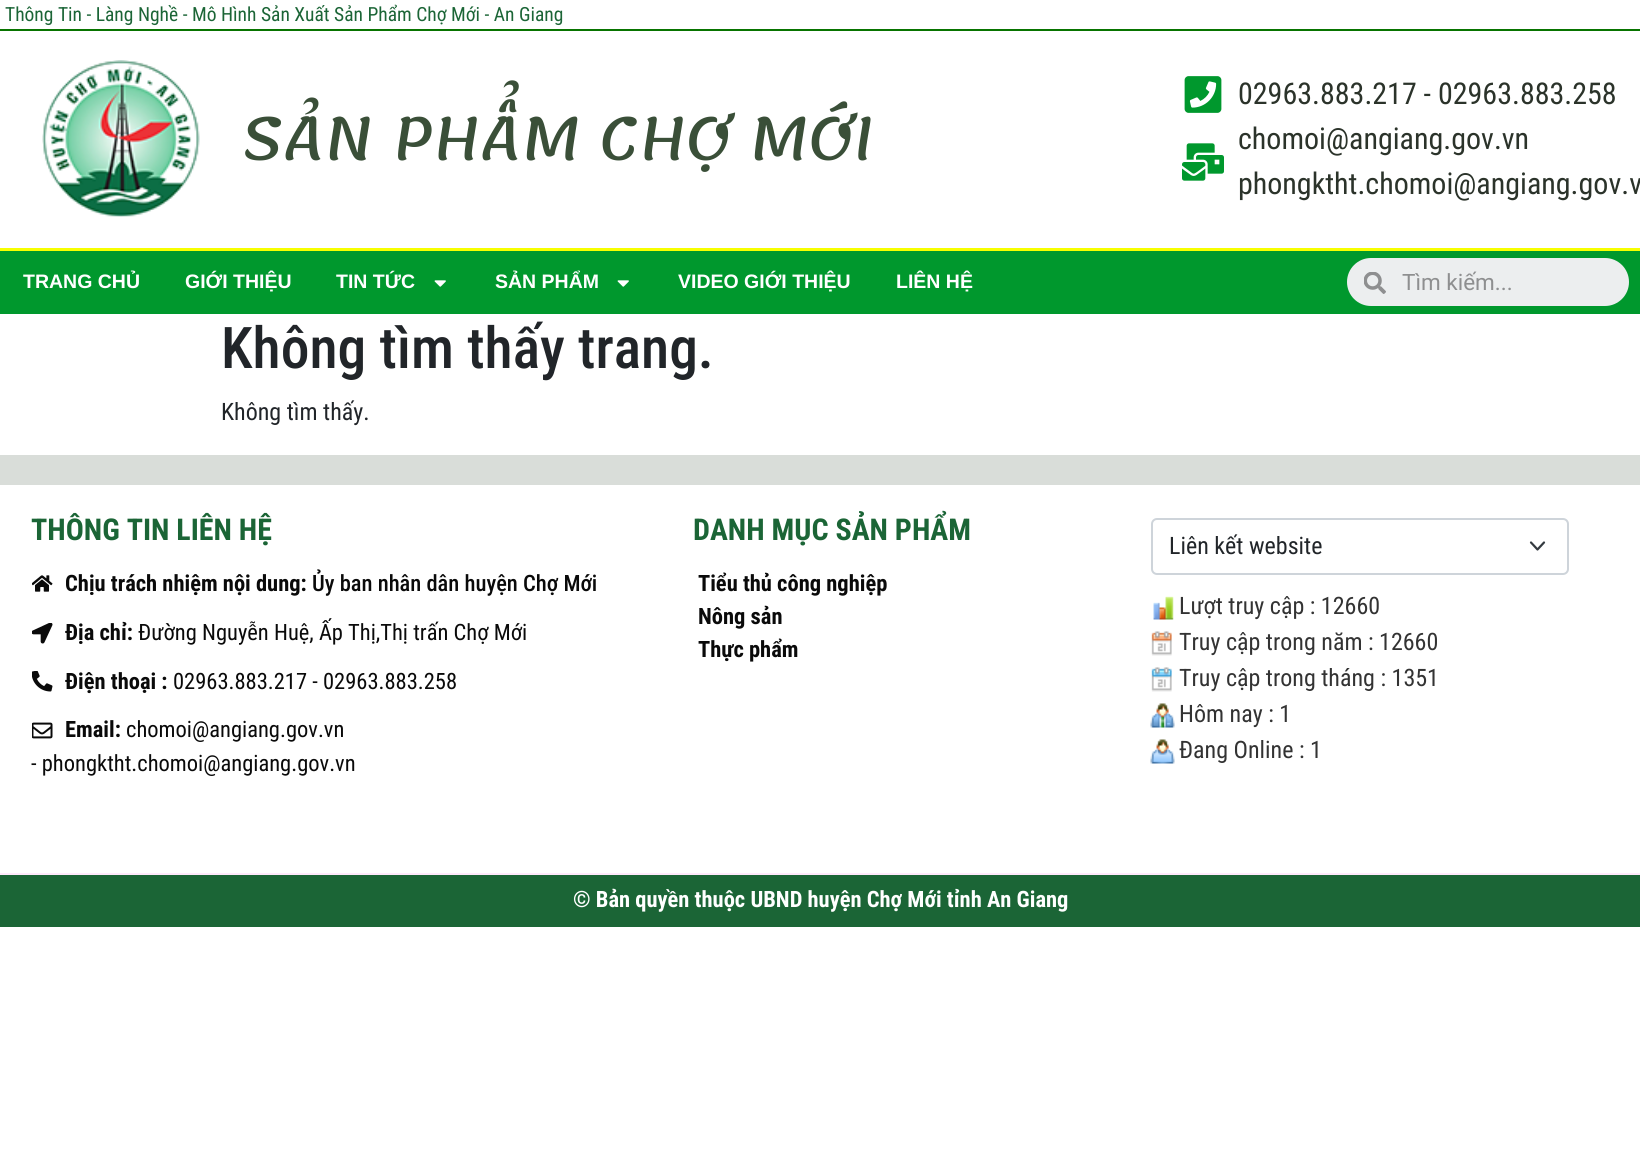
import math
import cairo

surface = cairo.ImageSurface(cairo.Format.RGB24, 1640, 1161)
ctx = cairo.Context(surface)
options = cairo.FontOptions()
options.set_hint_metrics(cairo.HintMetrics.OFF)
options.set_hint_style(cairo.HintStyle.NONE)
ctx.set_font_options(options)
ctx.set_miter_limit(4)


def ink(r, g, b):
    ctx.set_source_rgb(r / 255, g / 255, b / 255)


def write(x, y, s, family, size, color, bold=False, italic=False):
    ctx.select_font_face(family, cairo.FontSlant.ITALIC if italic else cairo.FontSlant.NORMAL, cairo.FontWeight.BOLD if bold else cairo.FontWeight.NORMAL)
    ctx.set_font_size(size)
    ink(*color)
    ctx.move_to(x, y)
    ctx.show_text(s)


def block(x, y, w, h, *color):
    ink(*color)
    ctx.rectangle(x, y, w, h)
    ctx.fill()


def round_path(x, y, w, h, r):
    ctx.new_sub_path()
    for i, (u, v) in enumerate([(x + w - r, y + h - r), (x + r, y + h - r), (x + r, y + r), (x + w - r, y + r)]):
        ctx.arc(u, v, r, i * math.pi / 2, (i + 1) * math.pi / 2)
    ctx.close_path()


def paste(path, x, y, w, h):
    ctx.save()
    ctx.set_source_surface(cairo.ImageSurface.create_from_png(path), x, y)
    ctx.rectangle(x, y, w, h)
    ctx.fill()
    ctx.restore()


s1 = dict(family="Roboto Condensed", size=19.5, color=(27, 101, 54))
s2 = dict(family="Lemonada", size=58.5, color=(58, 79, 56))
s3 = dict(family="Roboto Condensed", size=30, color=(43, 51, 42))
s4 = dict(family="Liberation Sans", size=19.5, color=(255, 255, 255), bold=True)
s5 = dict(family="Roboto", size=22.5, color=(142, 143, 144))
s6 = dict(family="Roboto Condensed Medium", size=57.5, color=(33, 37, 41))
s7 = dict(family="Roboto Condensed", size=24, color=(33, 37, 41))
s8 = dict(family="Roboto Condensed", size=30, color=(27, 101, 54), bold=True)
s9 = dict(family="Roboto Condensed", size=22.5, color=(10, 10, 10), bold=True)
s10 = dict(family="Roboto Condensed Medium", size=22.5, color=(10, 10, 10))
s11 = dict(family="Roboto Condensed", size=22.5, color=(10, 10, 10))
s12 = dict(family="Roboto Condensed", size=24, color=(51, 51, 51))
s13 = dict(family="Roboto Condensed", size=22.5, color=(255, 255, 255), bold=True)

ink(255, 255, 255)
ctx.paint()
write(5, 21, "Thông Tin - Làng Nghề - Mô Hình Sản Xuất Sản Phẩm Chợ Mới - An Giang", **s1)
block(0, 29, 1640, 2, 8, 116, 0)
paste("pic1.png", 42, 60, 158, 157)
write(241, 159, "SẢN PHẨM CHỢ MỚI", **s2)
paste("pic2.png", 1184, 76, 38, 37)
write(1238, 104, "02963.883.217 - 02963.883.258", **s3)
paste("pic3.png", 1182, 143, 42, 38)
write(1238, 149, "chomoi@angiang.gov.vn", **s3)
write(1238, 194, "phongktht.chomoi@angiang.gov.v", **s3)
block(0, 251, 1640, 63, 0, 152, 45)
block(0, 248, 1640, 3, 247, 255, 0)
write(23, 288, "TRANG CHỦ", **s4)
write(185, 288, "GIỚI THIỆU", **s4)
write(336, 288, "TIN TỨC", **s4)
paste("pic4.png", 434, 280, 12, 7)
write(495, 288, "SẢN PHẨM", **s4)
paste("pic4.png", 617, 280, 12, 7)
write(678, 288, "VIDEO GIỚI THIỆU", **s4)
write(896, 288, "LIÊN HỆ", **s4)
ink(236, 238, 239)
round_path(1347, 258, 282, 48, 24)
ctx.fill()
paste("pic5.png", 1364, 272, 22, 22)
write(1402, 290, "Tìm kiếm...", **s5)
write(221, 368, "Không tìm thấy trang.", **s6)
write(221, 420, "Không tìm thấy.", **s7)
block(0, 873, 1640, 2, 255, 233, 251)
block(0, 455, 1640, 30, 217, 221, 217)
write(31, 540, "THÔNG TIN LIÊN HỆ", **s8)
paste("pic6.png", 32, 575, 21, 17)
write(65, 591, "Chịu trách nhiệm nội dung:", **s9)
write(312, 591, "Ủy ban nhân dân huyện Chợ Mới", **s10)
paste("pic7.png", 32, 623, 21, 21)
write(65, 640, "Địa chỉ:", **s9)
write(138, 640, "Đường Nguyễn Huệ, Ấp Thị,Thị trấn Chợ Mới", **s11)
paste("pic8.png", 32, 671, 21, 21)
write(65, 689, "Điện thoại :", **s9)
write(173, 689, "02963.883.217 - 02963.883.258", **s11)
paste("pic9.png", 32, 722, 21, 17)
write(65, 737, "Email:", **s9)
write(126, 737, "chomoi@angiang.gov.vn", **s11)
write(31, 771, "- phongktht.chomoi@angiang.gov.vn", **s11)
write(693, 540, "DANH MỤC SẢN PHẨM", **s8)
write(698, 591, "Tiểu thủ công nghiệp", **s9)
write(698, 624, "Nông sản", **s9)
write(698, 657, "Thực phẩm", **s9)
ctx.new_path()
ctx.move_to(1531, 542.5)
ctx.line_to(1537.5, 549.5)
ctx.line_to(1544, 542.5)
ink(52, 58, 64)
ctx.set_line_width(2.2)
ctx.set_line_cap(cairo.LineCap.ROUND)
ctx.set_line_join(cairo.LineJoin.ROUND)
ctx.stroke()
round_path(1152, 519, 416, 55, 5)
ink(206, 212, 218)
ctx.set_line_width(2)
ctx.set_line_cap(cairo.LineCap.BUTT)
ctx.set_line_join(cairo.LineJoin.MITER)
ctx.stroke()
write(1169, 554, "Liên kết website", **s7)
paste("pic10.png", 1153, 596, 21, 24)
write(1179, 614, "Lượt truy cập : 12660", **s12)
paste("pic11.png", 1151, 631, 21, 25)
write(1179, 650, "Truy cập trong năm : 12660", **s12)
paste("pic12.png", 1151, 667, 21, 25)
write(1179, 686, "Truy cập trong tháng : 1351", **s12)
paste("pic13.png", 1150, 703, 25, 25)
write(1179, 722, "Hôm nay : 1", **s12)
paste("pic14.png", 1150, 739, 25, 25)
write(1179, 758, "Đang Online : 1", **s12)
block(0, 875, 1640, 52, 27, 101, 54)
write(573, 907, "© Bản quyền thuộc UBND huyện Chợ Mới tỉnh An Giang", **s13)
surface.write_to_png("screenshot.png")
